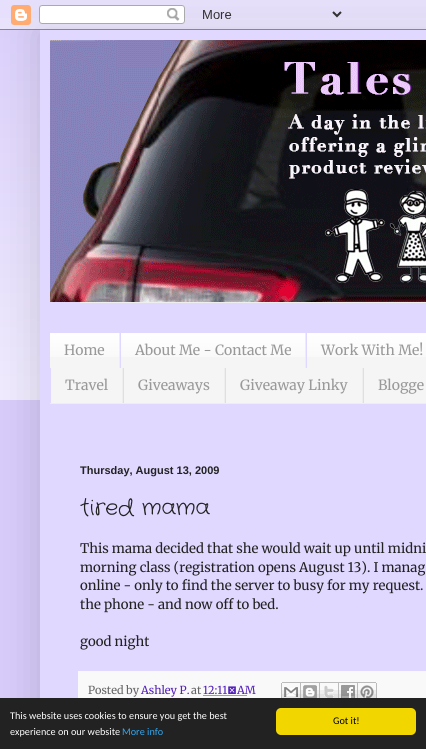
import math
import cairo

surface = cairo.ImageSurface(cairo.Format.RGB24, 426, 749)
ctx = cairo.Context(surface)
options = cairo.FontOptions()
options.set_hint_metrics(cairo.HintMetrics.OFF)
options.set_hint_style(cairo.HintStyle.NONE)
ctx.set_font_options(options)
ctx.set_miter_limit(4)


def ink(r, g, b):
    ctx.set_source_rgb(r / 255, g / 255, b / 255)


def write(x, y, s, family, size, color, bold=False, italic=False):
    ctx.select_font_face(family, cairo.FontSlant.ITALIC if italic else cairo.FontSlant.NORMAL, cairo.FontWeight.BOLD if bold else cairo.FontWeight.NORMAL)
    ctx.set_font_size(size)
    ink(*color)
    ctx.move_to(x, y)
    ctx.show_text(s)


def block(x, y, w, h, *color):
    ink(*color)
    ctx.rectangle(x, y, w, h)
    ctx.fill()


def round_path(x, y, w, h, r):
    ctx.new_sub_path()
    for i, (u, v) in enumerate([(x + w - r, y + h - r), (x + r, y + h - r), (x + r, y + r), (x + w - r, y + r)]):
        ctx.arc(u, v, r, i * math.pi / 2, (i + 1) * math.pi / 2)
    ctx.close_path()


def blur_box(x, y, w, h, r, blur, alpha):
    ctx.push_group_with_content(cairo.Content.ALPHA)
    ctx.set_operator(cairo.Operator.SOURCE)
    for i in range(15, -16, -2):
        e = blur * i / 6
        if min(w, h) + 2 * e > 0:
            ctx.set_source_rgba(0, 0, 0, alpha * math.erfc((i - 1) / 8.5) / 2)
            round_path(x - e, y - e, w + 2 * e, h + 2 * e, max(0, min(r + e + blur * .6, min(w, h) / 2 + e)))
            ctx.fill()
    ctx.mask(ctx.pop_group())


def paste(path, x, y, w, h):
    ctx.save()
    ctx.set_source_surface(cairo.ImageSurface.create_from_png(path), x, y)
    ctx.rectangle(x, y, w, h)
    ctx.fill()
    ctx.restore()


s1 = dict(family="Merriweather Light", size=14, color=(153, 153, 153))
s2 = dict(family="Liberation Sans", size=11, color=(34, 34, 34), bold=True)
s3 = dict(family="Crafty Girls", size=22, color=(34, 34, 34))
s4 = dict(family="Merriweather Light", size=13.2, color=(34, 34, 34))
s5 = dict(family="Merriweather Light", size=11, color=(102, 102, 102))
s6 = dict(family="Merriweather Light", size=11, color=(83, 33, 187))
s7 = dict(family="Carlito", size=10.2, color=(255, 255, 255))
s8 = dict(family="Carlito", size=10.2, color=(49, 168, 240))
s9 = dict(family="Carlito", size=10.2, color=(0, 0, 0))

ink(215, 203, 250)
ctx.paint()
paste("pic2.png", 0, 18, 426, 382)
ink(0, 0, 0)
blur_box(40, 30, 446, 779, 0, 20, 0.15)
paste("pic1.png", 0, 0, 426, 30)
block(40, 30, 386, 668, 225, 216, 255)
paste("pic3.png", 50, 40, 376, 262)
block(80, 302, 346, 1, 238, 238, 238)
block(50, 334, 376, 69, 245, 245, 245)
paste("pic4.png", 50, 333, 376, 24)
block(50, 403, 376, 1, 238, 238, 238)
block(119, 333, 1, 35, 238, 238, 238)
write(64, 355, "Home", **s1)
block(305, 333, 1, 35, 238, 238, 238)
block(120, 333, 1, 35, 225, 216, 255)
write(135, 355, "About Me - Contact Me", **s1)
block(306, 333, 1, 35, 225, 216, 255)
write(321, 355, "Work With Me!", **s1)
block(122, 368, 1, 35, 238, 238, 238)
block(50, 368, 1, 35, 225, 216, 255)
write(65, 390, "Travel", **s1)
block(224, 368, 1, 35, 238, 238, 238)
block(123, 368, 1, 35, 225, 216, 255)
write(138, 390, "Giveaways", **s1)
block(362, 368, 1, 35, 238, 238, 238)
block(225, 368, 1, 35, 225, 216, 255)
write(240, 390, "Giveaway Linky", **s1)
block(363, 368, 1, 35, 225, 216, 255)
write(378, 390, "Blogge", **s1)
write(80, 474, "Thursday, August 13, 2009", **s2)
write(80, 514, "tired mama", **s3)
write(80, 553, "This mama decided that she would wait up until midni", **s4)
write(80, 572, "morning class (registration opens August 13). I manag", **s4)
write(80, 590, "online - only to find the server to busy for my request.", **s4)
write(80, 609, "the phone - and now off to bed.", **s4)
write(80, 646, "good night", **s4)
block(78, 671, 348, 27, 249, 249, 249)
write(88, 694, "Posted by", **s5)
write(141, 694, "Ashley P.", **s6)
write(191, 694, "at", **s5)
write(203, 694, "12:11 AM", **s6)
ctx.new_path()
ctx.move_to(203.5, 695.5)
ctx.line_to(247, 695.5)
ctx.set_line_width(1)
ctx.set_dash([1, 1])
ctx.stroke()
paste("pic5.png", 281, 682, 20, 16)
paste("pic6.png", 301, 682, 19, 16)
paste("pic7.png", 320, 682, 19, 16)
paste("pic8.png", 339, 682, 19, 16)
paste("pic9.png", 358, 682, 19, 16)
block(0, 698, 426, 51, 34, 34, 34)
write(10, 719, "This website uses cookies to ensure you get the best", **s7)
write(10, 735, "experience on our website", **s7)
write(122, 735, "More info", **s8)
ink(241, 214, 0)
round_path(276, 708, 140, 27, 5)
ctx.fill()
write(333, 724, "Got it!", **s9)
surface.write_to_png("screenshot.png")
